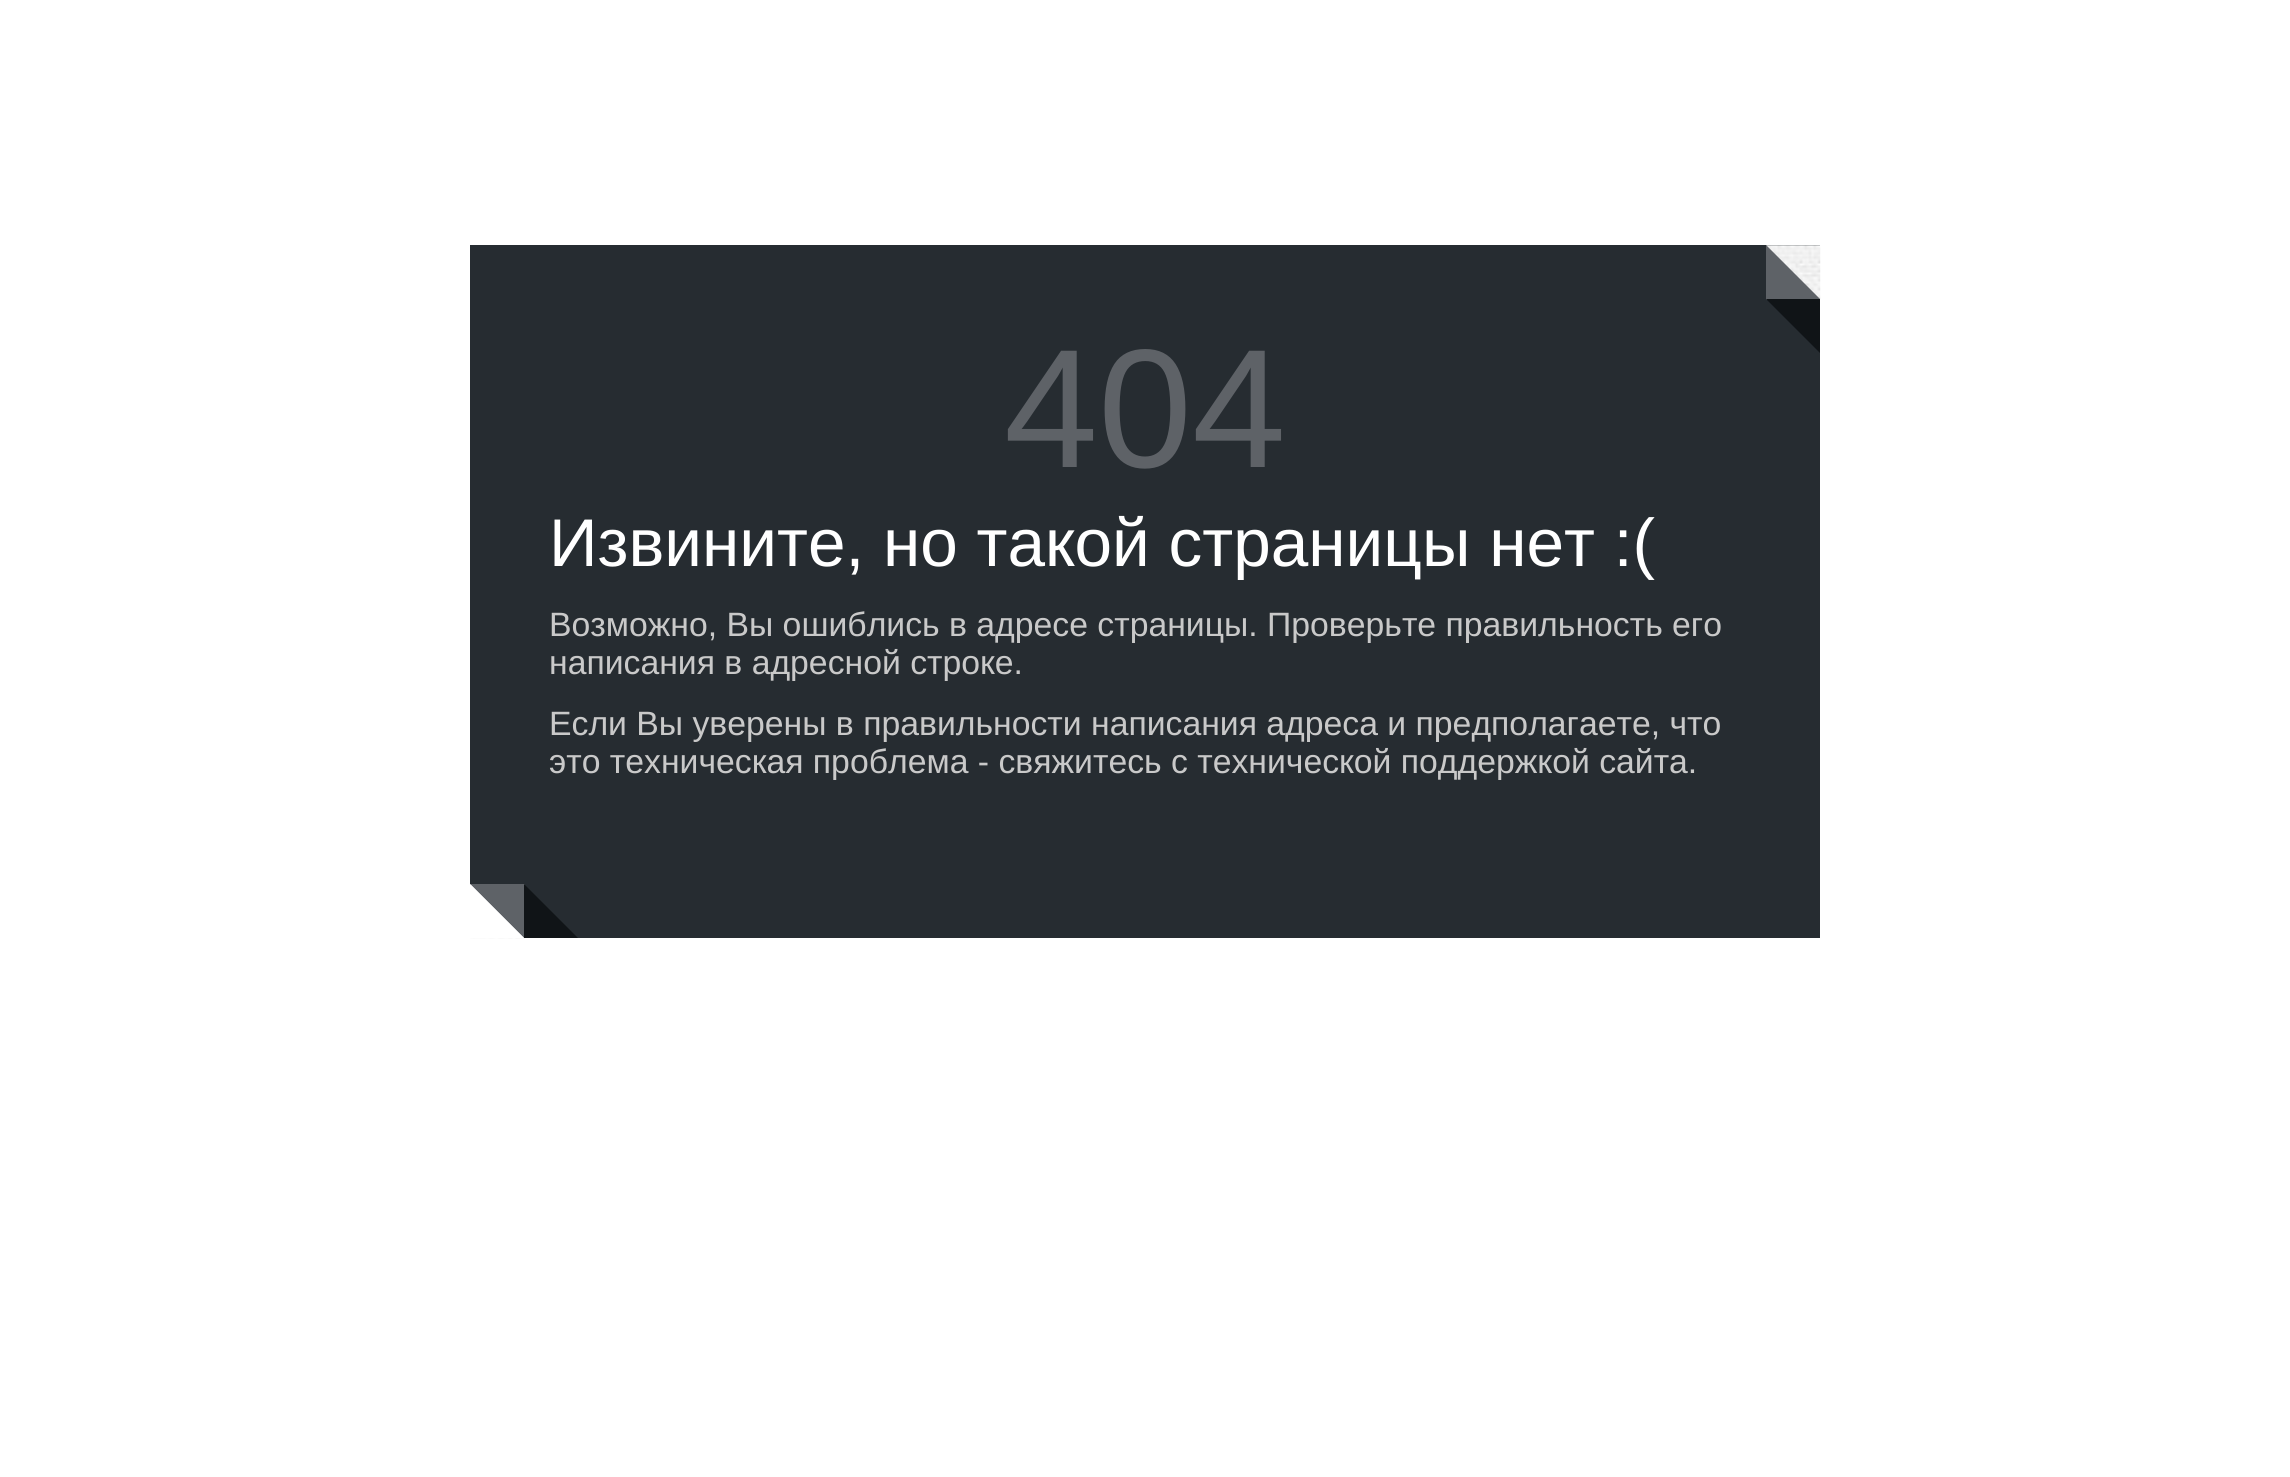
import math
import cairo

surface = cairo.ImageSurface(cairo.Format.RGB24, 2290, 1477)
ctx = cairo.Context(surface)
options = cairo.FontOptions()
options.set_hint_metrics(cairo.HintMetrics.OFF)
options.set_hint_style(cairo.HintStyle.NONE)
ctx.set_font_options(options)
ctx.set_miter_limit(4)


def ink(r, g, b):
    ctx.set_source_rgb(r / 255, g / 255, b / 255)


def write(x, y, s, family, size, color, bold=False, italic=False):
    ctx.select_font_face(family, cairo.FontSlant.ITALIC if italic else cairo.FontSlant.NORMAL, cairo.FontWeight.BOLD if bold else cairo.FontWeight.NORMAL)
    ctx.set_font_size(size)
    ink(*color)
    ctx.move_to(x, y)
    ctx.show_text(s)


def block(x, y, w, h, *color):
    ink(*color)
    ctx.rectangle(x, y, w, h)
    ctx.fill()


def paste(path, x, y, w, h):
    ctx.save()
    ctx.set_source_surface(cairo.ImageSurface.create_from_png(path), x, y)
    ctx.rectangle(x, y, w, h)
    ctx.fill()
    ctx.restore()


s1 = dict(family="Liberation Sans", size=169, color=(94, 98, 103))
s2 = dict(family="Liberation Sans", size=67.5, color=(255, 255, 255))
s3 = dict(family="Liberation Sans", size=33.75, color=(201, 201, 201))

ink(255, 255, 255)
ctx.paint()
block(470, 245, 1350, 693, 38, 44, 49)
paste("pic1.png", 1766, 245, 55, 55)
ink(94, 98, 103)
ctx.new_path()
ctx.move_to(1820, 299)
ctx.line_to(1766, 299)
ctx.line_to(1766, 245)
ctx.close_path()
ctx.fill()
ink(16, 20, 23)
ctx.new_path()
ctx.move_to(1820, 299)
ctx.line_to(1820, 353)
ctx.line_to(1766, 299)
ctx.close_path()
ctx.fill()
write(1004, 467, "404", **s1)
write(549, 566, "Извините, но такой страницы нет :(", **s2)
write(549, 636, "Возможно, Вы ошиблись в адресе страницы. Проверьте правильность его", **s3)
write(549, 674, "написания в адресной строке.", **s3)
write(549, 735, "Если Вы уверены в правильности написания адреса и предполагаете, что", **s3)
write(549, 773, "это техническая проблема - свяжитесь с технической поддержкой сайта.", **s3)
paste("pic2.png", 470, 884, 55, 55)
ink(94, 98, 103)
ctx.new_path()
ctx.move_to(470, 884)
ctx.line_to(524, 884)
ctx.line_to(524, 938)
ctx.close_path()
ctx.fill()
ink(255, 255, 255)
ctx.new_path()
ctx.move_to(470, 938)
ctx.line_to(470, 884)
ctx.line_to(524, 938)
ctx.close_path()
ctx.fill()
ink(16, 20, 23)
ctx.new_path()
ctx.move_to(578, 938)
ctx.line_to(524, 938)
ctx.line_to(524, 884)
ctx.close_path()
ctx.fill()
surface.write_to_png("screenshot.png")
